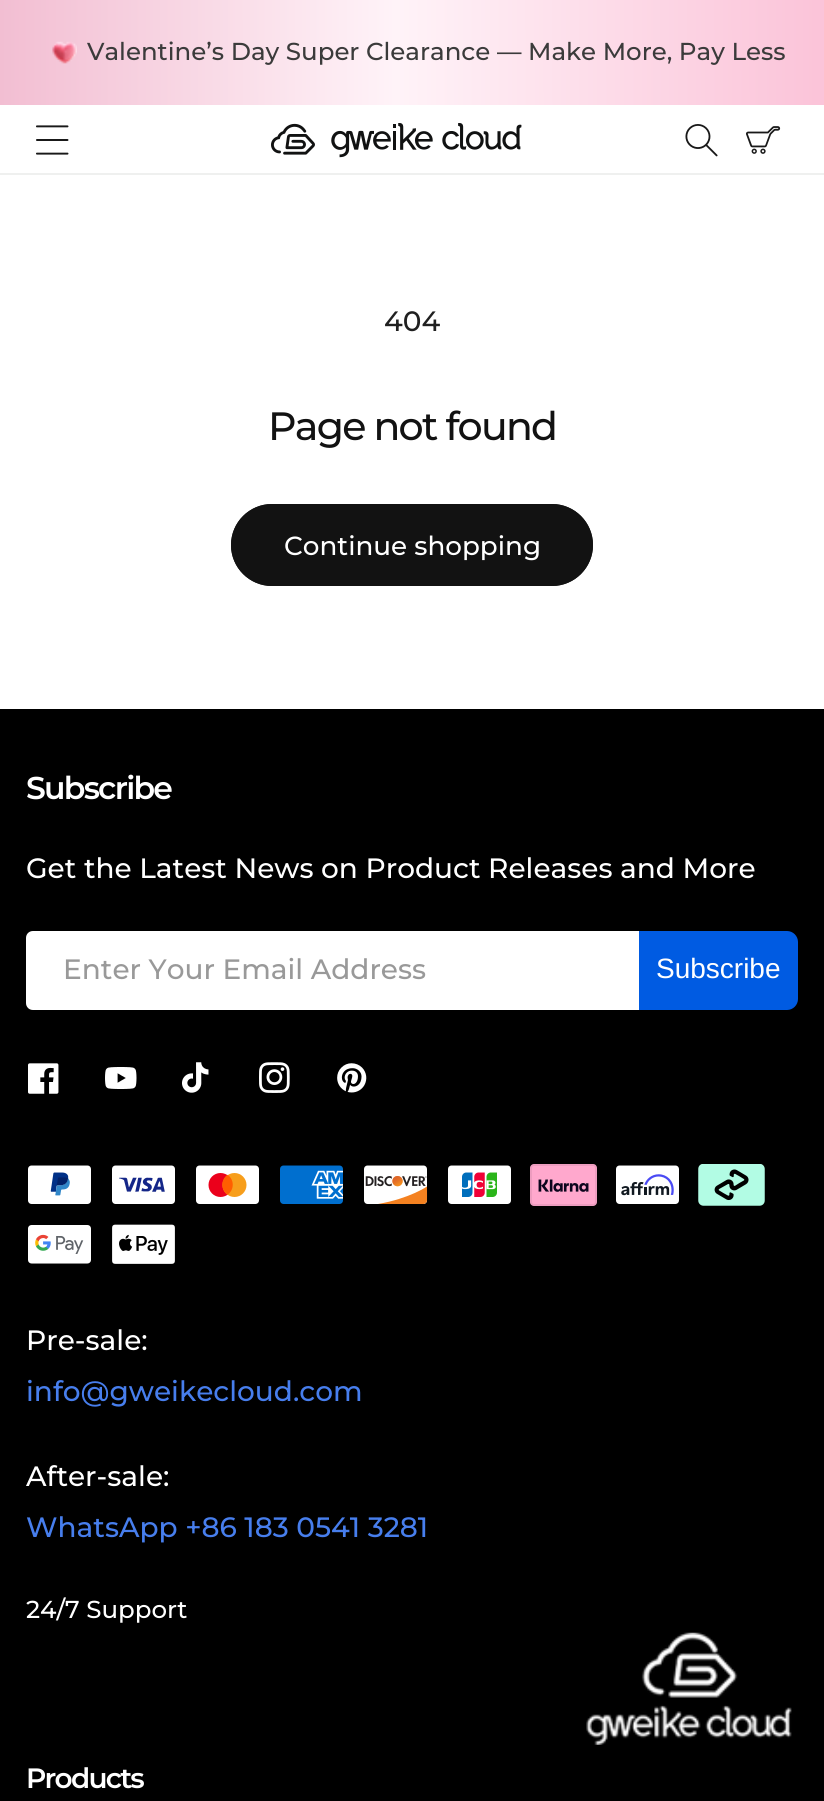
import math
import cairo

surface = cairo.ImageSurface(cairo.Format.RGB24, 824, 1801)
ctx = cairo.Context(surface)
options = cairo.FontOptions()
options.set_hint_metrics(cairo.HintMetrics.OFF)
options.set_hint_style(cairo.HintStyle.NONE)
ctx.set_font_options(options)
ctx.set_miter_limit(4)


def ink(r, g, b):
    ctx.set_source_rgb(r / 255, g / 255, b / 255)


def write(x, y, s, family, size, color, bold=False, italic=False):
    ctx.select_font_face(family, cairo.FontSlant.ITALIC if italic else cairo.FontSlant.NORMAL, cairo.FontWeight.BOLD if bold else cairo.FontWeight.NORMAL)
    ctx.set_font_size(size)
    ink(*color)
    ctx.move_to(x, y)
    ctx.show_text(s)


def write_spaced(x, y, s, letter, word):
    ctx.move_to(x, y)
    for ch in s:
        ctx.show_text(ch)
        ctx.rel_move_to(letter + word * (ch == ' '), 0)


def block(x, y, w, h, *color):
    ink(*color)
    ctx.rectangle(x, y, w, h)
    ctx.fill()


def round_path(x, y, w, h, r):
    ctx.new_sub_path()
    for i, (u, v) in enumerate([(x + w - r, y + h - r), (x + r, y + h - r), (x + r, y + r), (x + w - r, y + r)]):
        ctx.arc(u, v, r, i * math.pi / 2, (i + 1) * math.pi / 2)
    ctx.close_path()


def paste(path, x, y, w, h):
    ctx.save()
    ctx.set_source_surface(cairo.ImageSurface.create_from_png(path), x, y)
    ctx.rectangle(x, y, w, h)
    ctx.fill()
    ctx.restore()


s1 = dict(family="Montserrat Thin", size=24.5, color=(59, 59, 59))
s2 = dict(family="Montserrat Thin", size=28, color=(32, 32, 32))
s3 = dict(family="Montserrat Thin", size=26.25, color=(255, 255, 255))
s4 = dict(family="Montserrat Thin", size=28, color=(255, 255, 255))
s5 = dict(family="Montserrat Thin", size=28, color=(153, 153, 153))
s6 = dict(family="Liberation Sans", size=28, color=(255, 255, 255))
s7 = dict(family="Montserrat Thin", size=28, color=(71, 126, 237))
s8 = dict(family="Montserrat Thin", size=24.5, color=(255, 255, 255))

ink(255, 255, 255)
ctx.paint()
gradient = cairo.LinearGradient(0, 53, 824, 52)
gradient.add_color_stop_rgba(0, 0.949, 0.745, 0.824, 1)
gradient.add_color_stop_rgba(0.48, 1, 0.953, 0.973, 1)
gradient.add_color_stop_rgba(0.99, 0.984, 0.769, 0.851, 1)
ctx.set_source(gradient)
ctx.rectangle(0, 0, 824, 105)
ctx.fill()
paste("pic1.png", 52, 41, 25, 23)
write(87, 60, "Valentine’s Day Super Clearance — Make More, Pay Less", **s1)
block(0, 173, 824, 2, 239, 240, 239)
paste("pic2.png", 36, 125, 33, 30)
paste("pic3.png", 271, 123, 251, 35)
paste("pic4.png", 685, 124, 33, 33)
paste("pic5.png", 746, 126, 35, 28)
write(384, 331, "404", **s2)
ctx.set_font_size(39.5)
ink(18, 18, 18)
write_spaced(268, 440, "Page not found", -1.75, 0)
round_path(231, 504, 362, 82, 41)
ctx.fill()
round_path(232, 505, 360, 80, 40)
ctx.stroke()
write(284, 555, "Continue shopping", **s3)
block(0, 709, 824, 1092, 0, 0, 0)
ctx.select_font_face("Montserrat SemiBold")
ctx.set_font_size(31.5)
ink(255, 255, 255)
write_spaced(26, 799, "Subscribe", -1.75, 0)
write(26, 878, "Get the Latest News on Product Releases and More", **s4)
ctx.new_path()
ctx.move_to(33, 931)
ctx.line_to(639, 931)
ctx.line_to(639, 1010)
ctx.line_to(33, 1010)
ctx.curve_to(29, 1010, 26, 1007, 26, 1003)
ctx.line_to(26, 938)
ctx.curve_to(26, 934, 29, 931, 33, 931)
ctx.close_path()
ctx.fill()
write(63, 979, "Enter Your Email Address", **s5)
ink(0, 91, 226)
ctx.new_path()
ctx.move_to(639, 931)
ctx.line_to(787, 931)
ctx.curve_to(793, 931, 798, 936, 798, 942)
ctx.line_to(798, 999)
ctx.curve_to(798, 1005, 793, 1010, 787, 1010)
ctx.line_to(639, 1010)
ctx.close_path()
ctx.fill()
write(656, 978, "Subscribe", **s6)
paste("pic6.png", 28, 1063, 31, 31)
paste("pic7.png", 105, 1067, 32, 22)
paste("pic8.png", 182, 1062, 27, 31)
paste("pic9.png", 259, 1062, 31, 31)
paste("pic10.png", 337, 1063, 30, 30)
paste("pic11.png", 28, 1165, 63, 39)
paste("pic12.png", 112, 1165, 63, 39)
paste("pic13.png", 196, 1165, 63, 39)
paste("pic14.png", 280, 1165, 63, 39)
paste("pic15.png", 364, 1165, 64, 39)
paste("pic16.png", 448, 1165, 63, 39)
paste("pic17.png", 530, 1164, 67, 42)
paste("pic18.png", 616, 1165, 63, 39)
paste("pic19.png", 698, 1164, 67, 42)
paste("pic20.png", 28, 1225, 63, 39)
paste("pic21.png", 112, 1224, 63, 40)
write(26, 1350, "Pre-sale:", **s4)
write(26, 1401, "info@gweikecloud.com", **s7)
write(26, 1486, "After-sale:", **s4)
write(26, 1537, "WhatsApp +86 183 0541 3281", **s7)
write(26, 1618, "24/7 Support", **s8)
paste("pic22.png", 586, 1632, 206, 113)
ctx.select_font_face("Montserrat SemiBold")
ctx.set_font_size(28)
write_spaced(26, 1788, "Products", -1.75, 0)
surface.write_to_png("screenshot.png")
